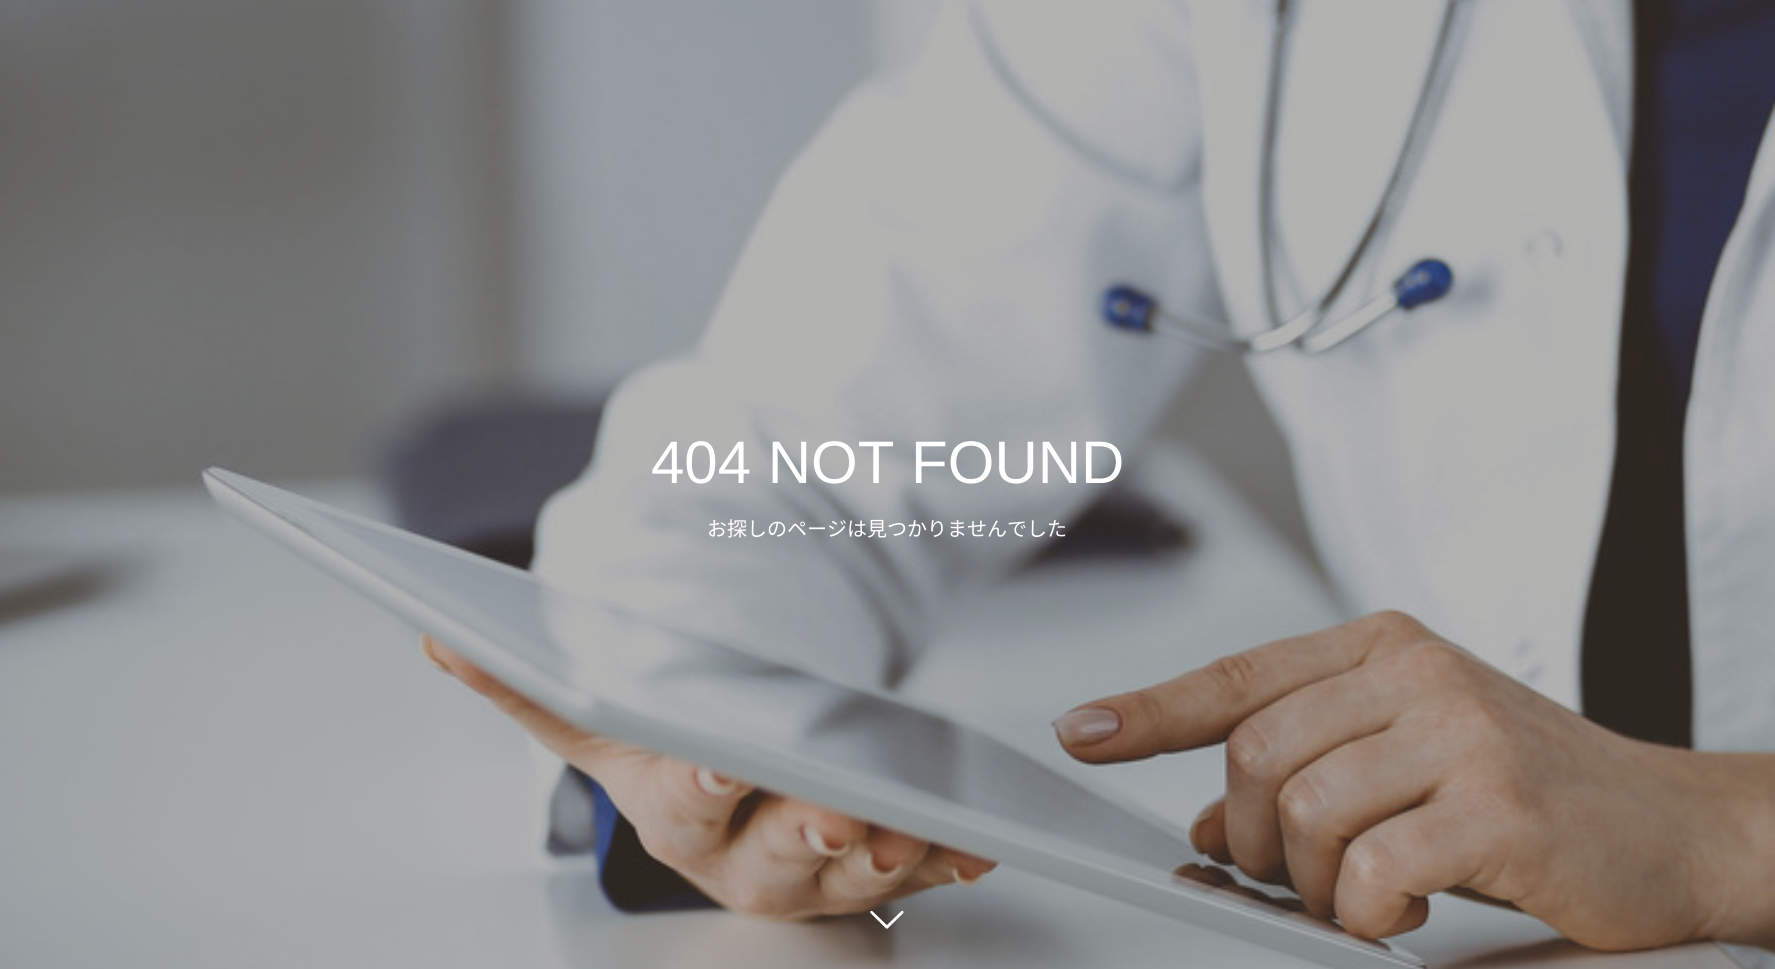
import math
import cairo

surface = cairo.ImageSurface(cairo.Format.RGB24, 1775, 969)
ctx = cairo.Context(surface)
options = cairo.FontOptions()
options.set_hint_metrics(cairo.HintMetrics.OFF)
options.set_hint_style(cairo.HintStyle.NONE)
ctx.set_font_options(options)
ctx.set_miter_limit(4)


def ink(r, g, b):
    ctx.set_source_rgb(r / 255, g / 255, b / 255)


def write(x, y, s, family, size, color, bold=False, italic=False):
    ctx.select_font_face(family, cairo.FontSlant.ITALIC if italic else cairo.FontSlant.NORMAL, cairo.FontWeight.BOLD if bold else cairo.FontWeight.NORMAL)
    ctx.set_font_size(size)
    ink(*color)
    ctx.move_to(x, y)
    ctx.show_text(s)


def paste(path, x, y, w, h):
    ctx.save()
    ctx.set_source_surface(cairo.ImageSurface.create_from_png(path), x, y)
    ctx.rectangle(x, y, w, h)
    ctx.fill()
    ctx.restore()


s1 = dict(family="Liberation Sans", size=60, color=(255, 255, 255))
s2 = dict(family="Noto Sans JP Thin", size=20, color=(255, 255, 255))

ink(255, 255, 255)
ctx.paint()
paste("pic1.png", 0, 0, 1775, 969)
write(651, 483, "404 NOT FOUND", **s1)
write(707, 536, "お探しのページは見つかりませんでした", **s2)
paste("pic2.png", 870, 910, 34, 19)
surface.write_to_png("screenshot.png")
